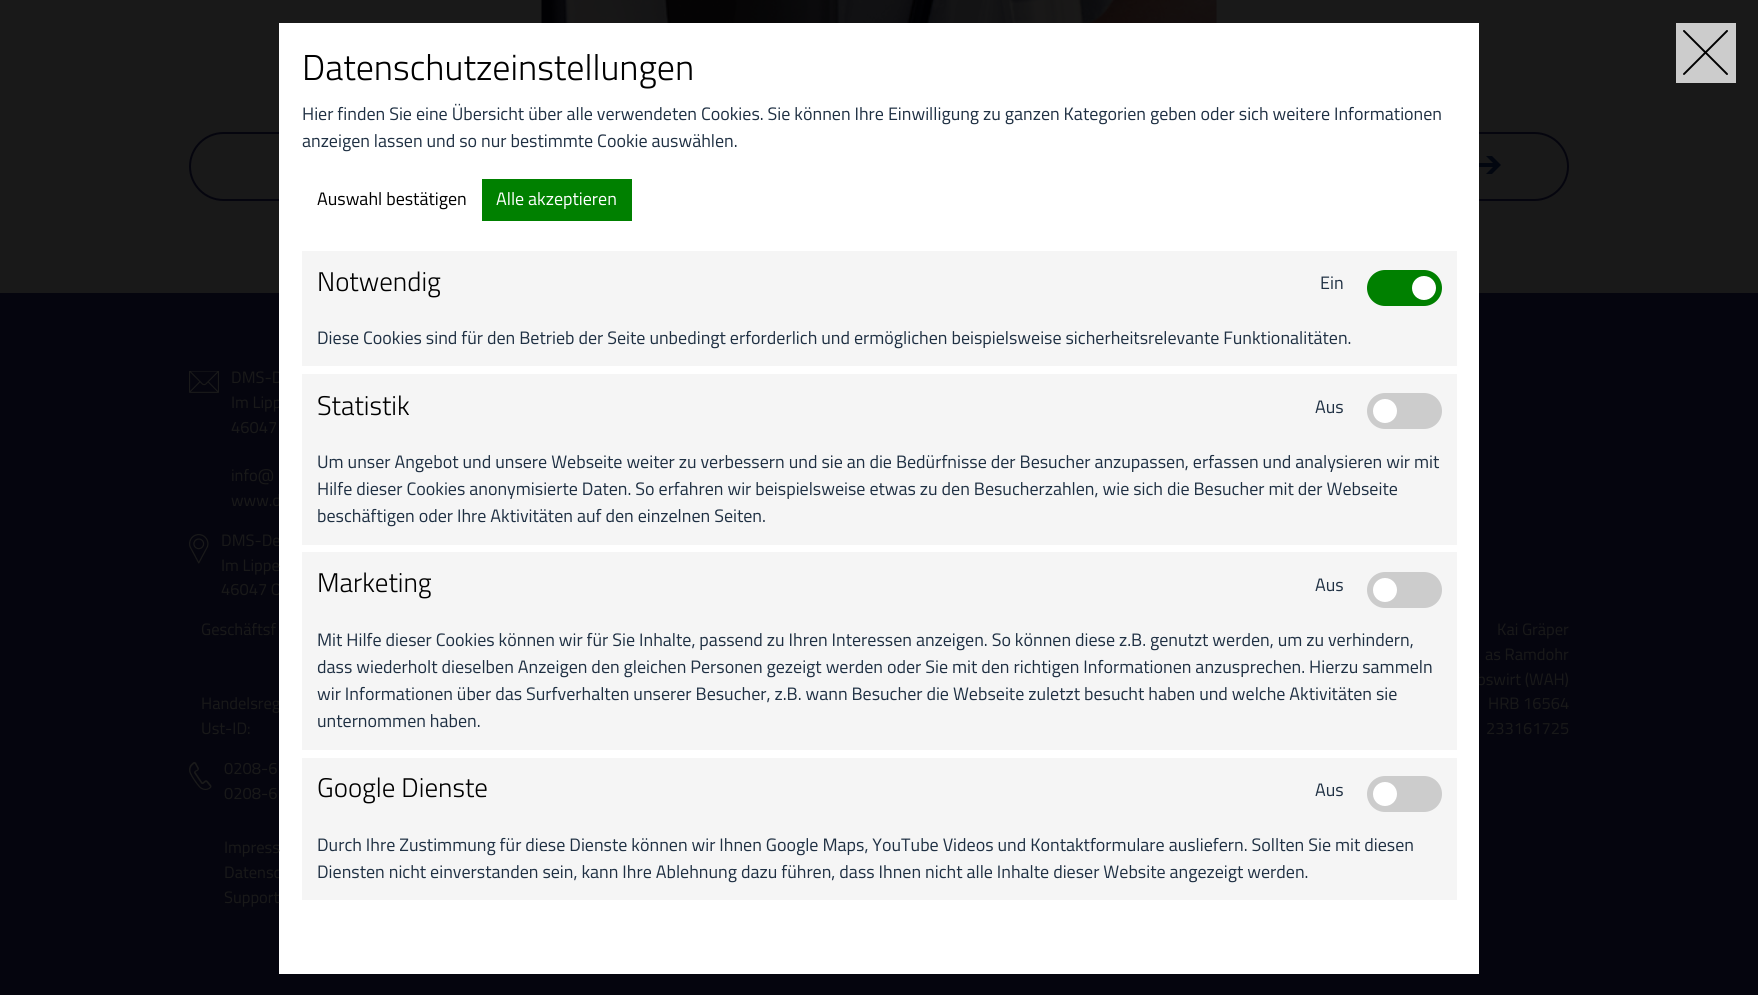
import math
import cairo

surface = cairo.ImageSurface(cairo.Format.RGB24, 1758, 995)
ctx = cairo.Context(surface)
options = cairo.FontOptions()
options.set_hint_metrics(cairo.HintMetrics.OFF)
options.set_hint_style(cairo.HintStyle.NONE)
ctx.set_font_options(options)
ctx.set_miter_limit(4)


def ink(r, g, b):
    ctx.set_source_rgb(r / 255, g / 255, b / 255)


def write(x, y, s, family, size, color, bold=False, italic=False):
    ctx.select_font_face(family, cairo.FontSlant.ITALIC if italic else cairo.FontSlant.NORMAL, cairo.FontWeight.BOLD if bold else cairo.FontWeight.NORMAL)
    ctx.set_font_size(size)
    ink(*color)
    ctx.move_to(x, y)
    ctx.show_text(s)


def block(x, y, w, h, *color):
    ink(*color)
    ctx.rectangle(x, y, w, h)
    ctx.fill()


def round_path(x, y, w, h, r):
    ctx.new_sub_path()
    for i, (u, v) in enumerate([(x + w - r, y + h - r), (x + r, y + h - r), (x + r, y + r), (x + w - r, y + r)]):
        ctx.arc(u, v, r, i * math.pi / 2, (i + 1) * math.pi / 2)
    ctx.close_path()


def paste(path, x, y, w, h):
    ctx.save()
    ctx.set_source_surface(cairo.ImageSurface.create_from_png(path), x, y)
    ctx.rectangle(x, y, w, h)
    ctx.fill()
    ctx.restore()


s1 = dict(family="Titillium Web", size=16.5, color=(25, 25, 25))
s2 = dict(family="Titillium Web Light", size=36, color=(0, 0, 0))
s3 = dict(family="Titillium Web", size=18, color=(31, 48, 67))
s4 = dict(family="Titillium Web", size=18, color=(0, 0, 0))
s5 = dict(family="Titillium Web", size=18, color=(255, 255, 255))
s6 = dict(family="Titillium Web Light", size=27, color=(0, 0, 0))

ink(25, 25, 25)
ctx.paint()
paste("pic1.png", 541, 0, 676, 23)
ink(2, 6, 15)
ctx.new_path()
ctx.move_to(1492, 174)
ctx.line_to(1486, 174)
ctx.line_to(1493, 167)
ctx.line_to(1454, 167)
ctx.line_to(1454, 163)
ctx.line_to(1493, 163)
ctx.line_to(1486, 156)
ctx.line_to(1492, 156)
ctx.line_to(1501, 165)
ctx.close_path()
ctx.fill()
round_path(190, 133, 1378, 67, 33.5)
ink(5, 5, 14)
ctx.stroke()
block(0, 293, 1758, 702, 5, 5, 14)
write(231, 383, "DMS-D", **s1)
write(231, 408, "Im Lipp", **s1)
write(231, 506, "www.d", **s1)
write(221, 546, "DMS-De", **s1)
write(221, 595, "46047 O", **s1)
write(1477, 685, "bswirt (WAH)", **s1)
write(201, 709, "Handelsreg", **s1)
write(224, 878, "Datensc", **s1)
block(279, 23, 1200, 951, 255, 255, 255)
write(302, 80, "Datenschutzeinstellungen", **s2)
write(302, 120, "Hier finden Sie eine Übersicht über alle verwendeten Cookies. Sie können Ihre Einwilligung zu ganzen Kategorien geben oder sich weitere Informationen", **s3)
write(302, 147, "anzeigen lassen und so nur bestimmte Cookie auswählen.", **s3)
write(317, 205, "Auswahl bestätigen", **s4)
block(482, 179, 150, 42, 0, 128, 0)
write(496, 205, "Alle akzeptieren", **s5)
block(302, 251, 1155, 115, 245, 245, 245)
write(317, 291, "Notwendig", **s6)
write(1320, 289, "Ein", **s3)
ink(0, 128, 0)
round_path(1367, 270, 75, 36, 18)
ctx.fill()
ink(255, 255, 255)
ctx.arc(1424, 288, 12, 0, 2 * math.pi)
ctx.fill()
write(317, 344, "Diese Cookies sind für den Betrieb der Seite unbedingt erforderlich und ermöglichen beispielsweise sicherheitsrelevante Funktionalitäten.", **s3)
block(302, 374, 1155, 171, 245, 245, 245)
write(317, 415, "Statistik", **s6)
write(1315, 413, "Aus", **s3)
ink(204, 204, 204)
round_path(1367, 393, 75, 36, 18)
ctx.fill()
ink(255, 255, 255)
ctx.arc(1385, 411, 12, 0, 2 * math.pi)
ctx.fill()
write(317, 468, "Um unser Angebot und unsere Webseite weiter zu verbessern und sie an die Bedürfnisse der Besucher anzupassen, erfassen und analysieren wir mit", **s3)
write(317, 495, "Hilfe dieser Cookies anonymisierte Daten. So erfahren wir beispielsweise etwas zu den Besucherzahlen, wie sich die Besucher mit der Webseite", **s3)
write(317, 522, "beschäftigen oder Ihre Aktivitäten auf den einzelnen Seiten.", **s3)
block(302, 552, 1155, 198, 245, 245, 245)
write(317, 592, "Marketing", **s6)
write(1315, 591, "Aus", **s3)
ink(204, 204, 204)
round_path(1367, 572, 75, 36, 18)
ctx.fill()
ink(255, 255, 255)
ctx.arc(1385, 590, 12, 0, 2 * math.pi)
ctx.fill()
write(317, 646, "Mit Hilfe dieser Cookies können wir für Sie Inhalte, passend zu Ihren Interessen anzeigen. So können diese z.B. genutzt werden, um zu verhindern,", **s3)
write(317, 673, "dass wiederholt dieselben Anzeigen den gleichen Personen gezeigt werden oder Sie mit den richtigen Informationen anzusprechen. Hierzu sammeln", **s3)
write(317, 700, "wir Informationen über das Surfverhalten unserer Besucher, z.B. wann Besucher die Webseite zuletzt besucht haben und welche Aktivitäten sie", **s3)
write(317, 727, "unternommen haben.", **s3)
block(302, 758, 1155, 142, 245, 245, 245)
write(317, 797, "Google Dienste", **s6)
write(1315, 796, "Aus", **s3)
ink(204, 204, 204)
round_path(1367, 776, 75, 36, 18)
ctx.fill()
ink(255, 255, 255)
ctx.arc(1385, 794, 12, 0, 2 * math.pi)
ctx.fill()
write(317, 851, "Durch Ihre Zustimmung für diese Dienste können wir Ihnen Google Maps, YouTube Videos und Kontaktformulare ausliefern. Sollten Sie mit diesen", **s3)
write(317, 878, "Diensten nicht einverstanden sein, kann Ihre Ablehnung dazu führen, dass Ihnen nicht alle Inhalte dieser Website angezeigt werden.", **s3)
block(1676, 23, 60, 60, 204, 204, 204)
paste("pic2.png", 1683, 30, 45, 45)
paste("pic3.png", 189, 371, 30, 22)
write(231, 433, "46047", **s1)
write(231, 481, "info@", **s1)
paste("pic4.png", 189, 534, 20, 30)
write(221, 571, "Im Lippe", **s1)
write(201, 635, "Geschäftsf", **s1)
write(1497, 635, "Kai Gräper", **s1)
write(1485, 660, "as Ramdohr", **s1)
write(1488, 709, "HRB 16564", **s1)
write(201, 734, "Ust-ID:", **s1)
write(1486, 734, "233161725", **s1)
paste("pic5.png", 189, 762, 23, 28)
write(224, 774, "0208-6", **s1)
write(224, 799, "0208-6", **s1)
write(224, 853, "Impress", **s1)
write(224, 903, "Support", **s1)
surface.write_to_png("screenshot.png")
